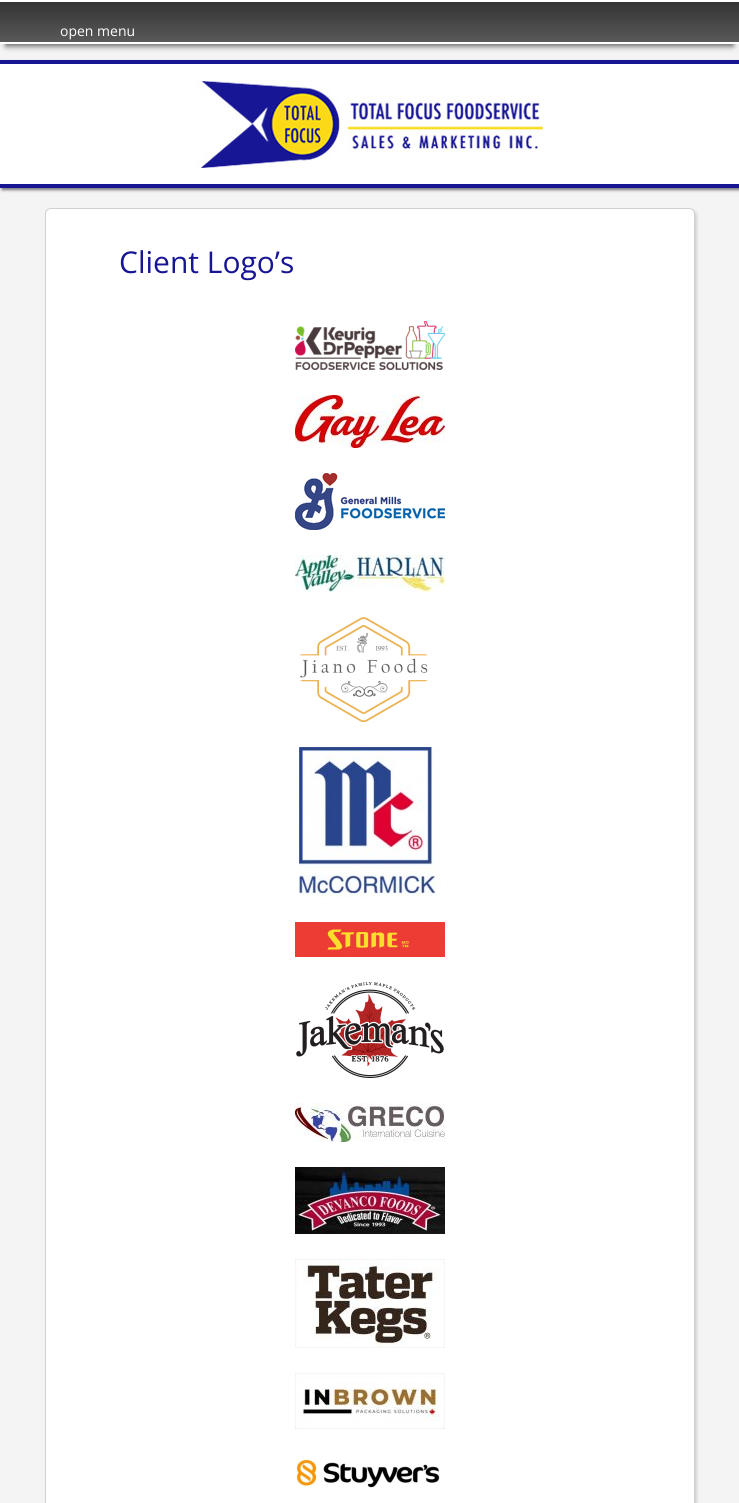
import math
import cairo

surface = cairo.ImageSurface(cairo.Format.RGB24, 739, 1503)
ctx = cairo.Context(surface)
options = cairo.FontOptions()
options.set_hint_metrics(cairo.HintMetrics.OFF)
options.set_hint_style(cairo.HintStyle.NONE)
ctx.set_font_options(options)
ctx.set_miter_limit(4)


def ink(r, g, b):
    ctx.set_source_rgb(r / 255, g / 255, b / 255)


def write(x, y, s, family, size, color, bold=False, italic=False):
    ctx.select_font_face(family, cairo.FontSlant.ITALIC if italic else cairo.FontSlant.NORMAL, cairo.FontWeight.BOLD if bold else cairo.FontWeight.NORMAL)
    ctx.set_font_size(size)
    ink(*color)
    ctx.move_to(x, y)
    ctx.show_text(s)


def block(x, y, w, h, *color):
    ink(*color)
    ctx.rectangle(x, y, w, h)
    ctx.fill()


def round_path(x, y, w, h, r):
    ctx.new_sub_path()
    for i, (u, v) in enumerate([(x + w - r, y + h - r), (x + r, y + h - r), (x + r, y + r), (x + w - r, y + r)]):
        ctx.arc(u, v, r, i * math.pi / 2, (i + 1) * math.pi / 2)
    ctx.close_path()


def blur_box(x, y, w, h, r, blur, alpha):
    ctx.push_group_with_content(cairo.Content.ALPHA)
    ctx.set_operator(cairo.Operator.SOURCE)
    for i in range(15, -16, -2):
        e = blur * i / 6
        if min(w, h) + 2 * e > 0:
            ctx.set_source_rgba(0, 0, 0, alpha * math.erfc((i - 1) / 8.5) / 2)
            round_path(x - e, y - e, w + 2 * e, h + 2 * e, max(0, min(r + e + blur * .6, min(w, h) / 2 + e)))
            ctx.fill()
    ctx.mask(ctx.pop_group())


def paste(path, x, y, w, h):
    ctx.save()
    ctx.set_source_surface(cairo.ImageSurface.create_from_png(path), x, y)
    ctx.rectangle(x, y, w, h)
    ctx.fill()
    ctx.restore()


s1 = dict(family="Open Sans", size=14, color=(255, 255, 255))
s2 = dict(family="Open Sans", size=30, color=(23, 21, 148))

ink(244, 244, 244)
ctx.paint()
ink(90, 90, 90)
blur_box(6, 14, 727, 32, 0, 3, 1)
gradient = cairo.LinearGradient(370, 2, 370, 42)
gradient.add_color_stop_rgba(0, 0.204, 0.204, 0.204, 1)
gradient.add_color_stop_rgba(1, 0.349, 0.349, 0.349, 1)
ctx.set_source(gradient)
ctx.rectangle(0, 2, 739, 40)
ctx.fill()
block(0, 0, 739, 2, 255, 255, 255)
block(0, 42, 739, 2, 255, 255, 255)
write(60, 36, "open menu", **s1)
ink(117, 117, 117)
blur_box(2, 62, 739, 128, 0, 1.5, 1)
block(0, 64, 739, 120, 255, 255, 255)
block(0, 60, 739, 4, 23, 21, 148)
block(0, 184, 739, 4, 23, 21, 148)
paste("pic1.png", 195, 80, 350, 88)
ink(209, 209, 209)
blur_box(47, 210, 650, 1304, 6, 1.5, 1)
ink(255, 255, 255)
round_path(45.5, 208.5, 649, 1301, 5.5)
ctx.fill_preserve()
ink(209, 209, 209)
ctx.set_line_width(1)
ctx.stroke()
write(119, 273, "Client Logo’s", **s2)
paste("pic2.png", 295, 321, 150, 49)
paste("pic3.png", 295, 395, 150, 53)
paste("pic4.png", 295, 473, 150, 57)
paste("pic5.png", 295, 555, 150, 37)
paste("pic6.png", 299, 617, 129, 105)
paste("pic7.png", 299, 747, 142, 150)
paste("pic8.png", 295, 922, 150, 35)
paste("pic9.png", 296, 982, 148, 96)
paste("pic10.png", 295, 1103, 150, 39)
paste("pic11.png", 295, 1167, 150, 67)
paste("pic12.png", 295, 1259, 150, 89)
paste("pic13.png", 295, 1373, 150, 56)
paste("pic14.png", 296, 1458, 144, 30)
surface.write_to_png("screenshot.png")
